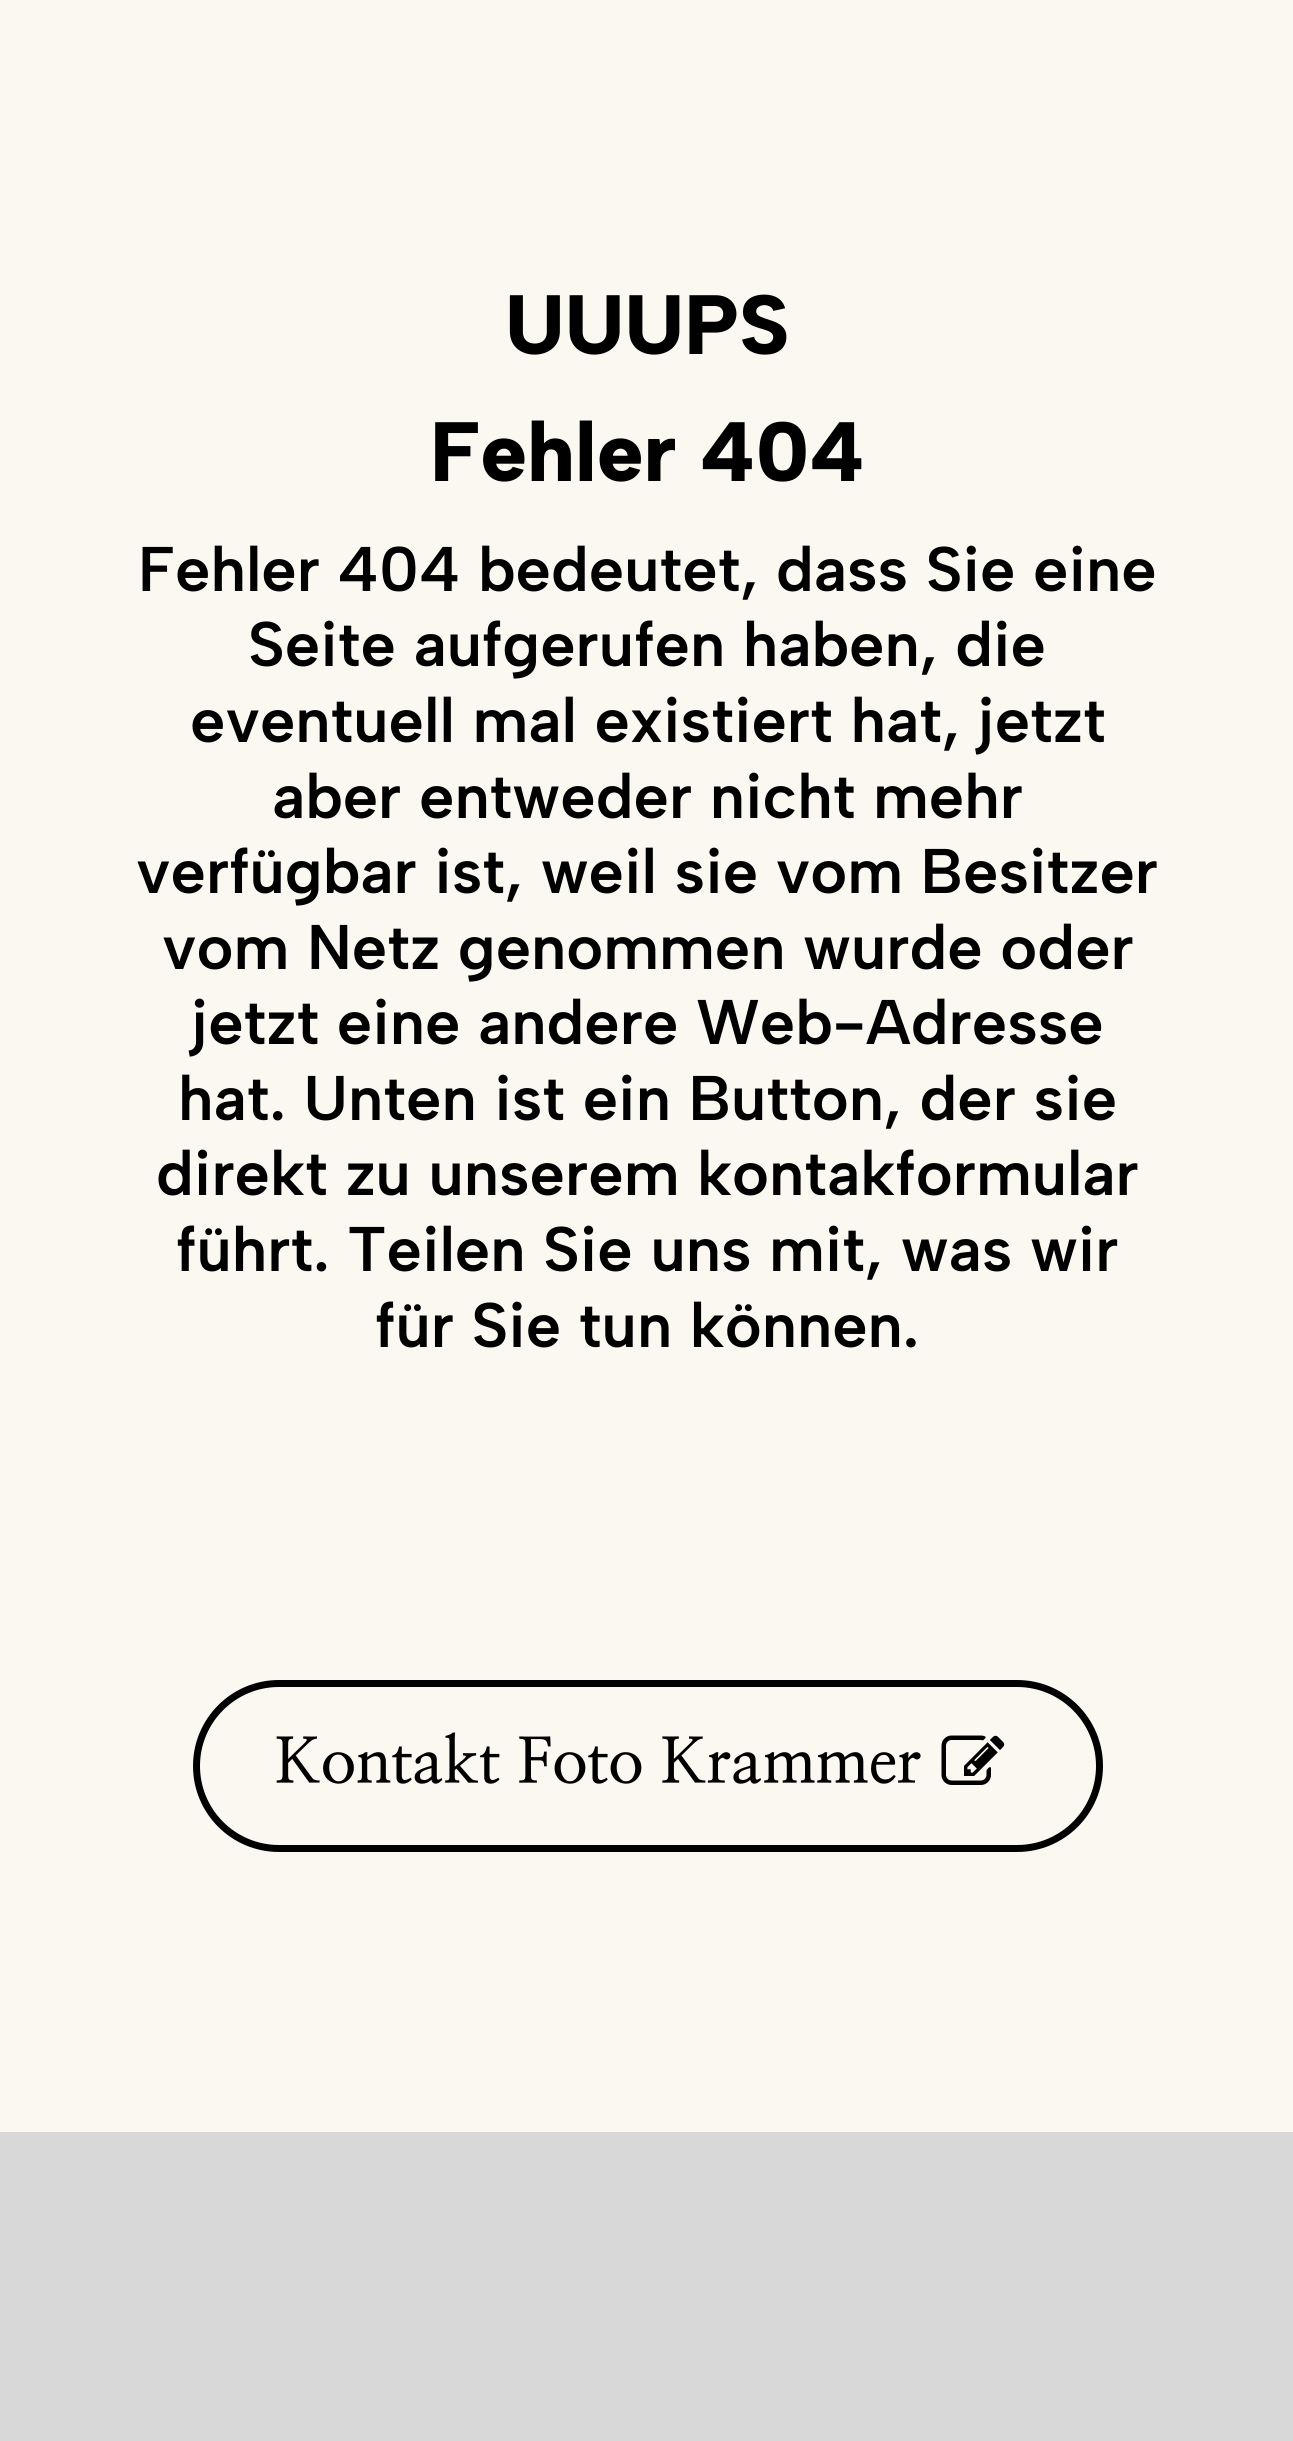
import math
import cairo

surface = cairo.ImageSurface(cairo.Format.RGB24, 1293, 2441)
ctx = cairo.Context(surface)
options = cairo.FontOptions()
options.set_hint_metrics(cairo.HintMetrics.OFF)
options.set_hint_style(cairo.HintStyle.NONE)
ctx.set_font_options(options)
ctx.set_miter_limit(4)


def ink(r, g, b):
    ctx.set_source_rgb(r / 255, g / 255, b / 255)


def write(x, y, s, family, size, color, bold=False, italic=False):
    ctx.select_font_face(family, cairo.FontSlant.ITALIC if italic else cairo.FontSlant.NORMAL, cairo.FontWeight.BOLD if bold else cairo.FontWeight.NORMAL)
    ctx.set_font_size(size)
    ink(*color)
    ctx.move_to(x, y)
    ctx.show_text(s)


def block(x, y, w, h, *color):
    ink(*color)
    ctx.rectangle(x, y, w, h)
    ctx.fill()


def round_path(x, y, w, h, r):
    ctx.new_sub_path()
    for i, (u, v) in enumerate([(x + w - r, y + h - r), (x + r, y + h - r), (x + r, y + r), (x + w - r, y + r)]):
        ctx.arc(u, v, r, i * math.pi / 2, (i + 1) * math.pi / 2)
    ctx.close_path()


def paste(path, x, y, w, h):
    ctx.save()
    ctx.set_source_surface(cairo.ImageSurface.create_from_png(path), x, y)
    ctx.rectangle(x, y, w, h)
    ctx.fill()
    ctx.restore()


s1 = dict(family="Albert Sans ExtraBold", size=84, color=(0, 0, 0))
s2 = dict(family="Albert Sans SemiBold", size=63, color=(0, 0, 0))
s3 = dict(family="NanumMyeongjo", size=63, color=(0, 0, 0), bold=True)

ink(216, 216, 216)
ctx.paint()
block(0, 0, 1293, 2132, 251, 248, 242)
write(505, 354, "UUUPS", **s1)
write(430, 481, "Fehler 404", **s1)
write(138, 591, "Fehler 404 bedeutet, dass Sie eine", **s2)
write(248, 666, "Seite aufgerufen haben, die", **s2)
write(190, 742, "eventuell mal existiert hat, jetzt", **s2)
write(272, 818, "aber entweder nicht mehr", **s2)
write(136, 893, "verfügbar ist, weil sie vom Besitzer", **s2)
write(162, 969, "vom Netz genommen wurde oder", **s2)
write(191, 1044, "jetzt eine andere Web-Adresse", **s2)
write(178, 1120, "hat. Unten ist ein Button, der sie", **s2)
write(156, 1195, "direkt zu unserem kontakformular", **s2)
write(176, 1271, "führt. Teilen Sie uns mit, was wir", **s2)
write(375, 1347, "für Sie tun können.", **s2)
round_path(196.5, 1683.5, 903, 165, 82.5)
ctx.set_line_width(7)
ctx.stroke()
write(275, 1783, "Kontakt Foto Krammer", **s3)
paste("pic1.png", 941, 1735, 64, 50)
surface.write_to_png("screenshot.png")
